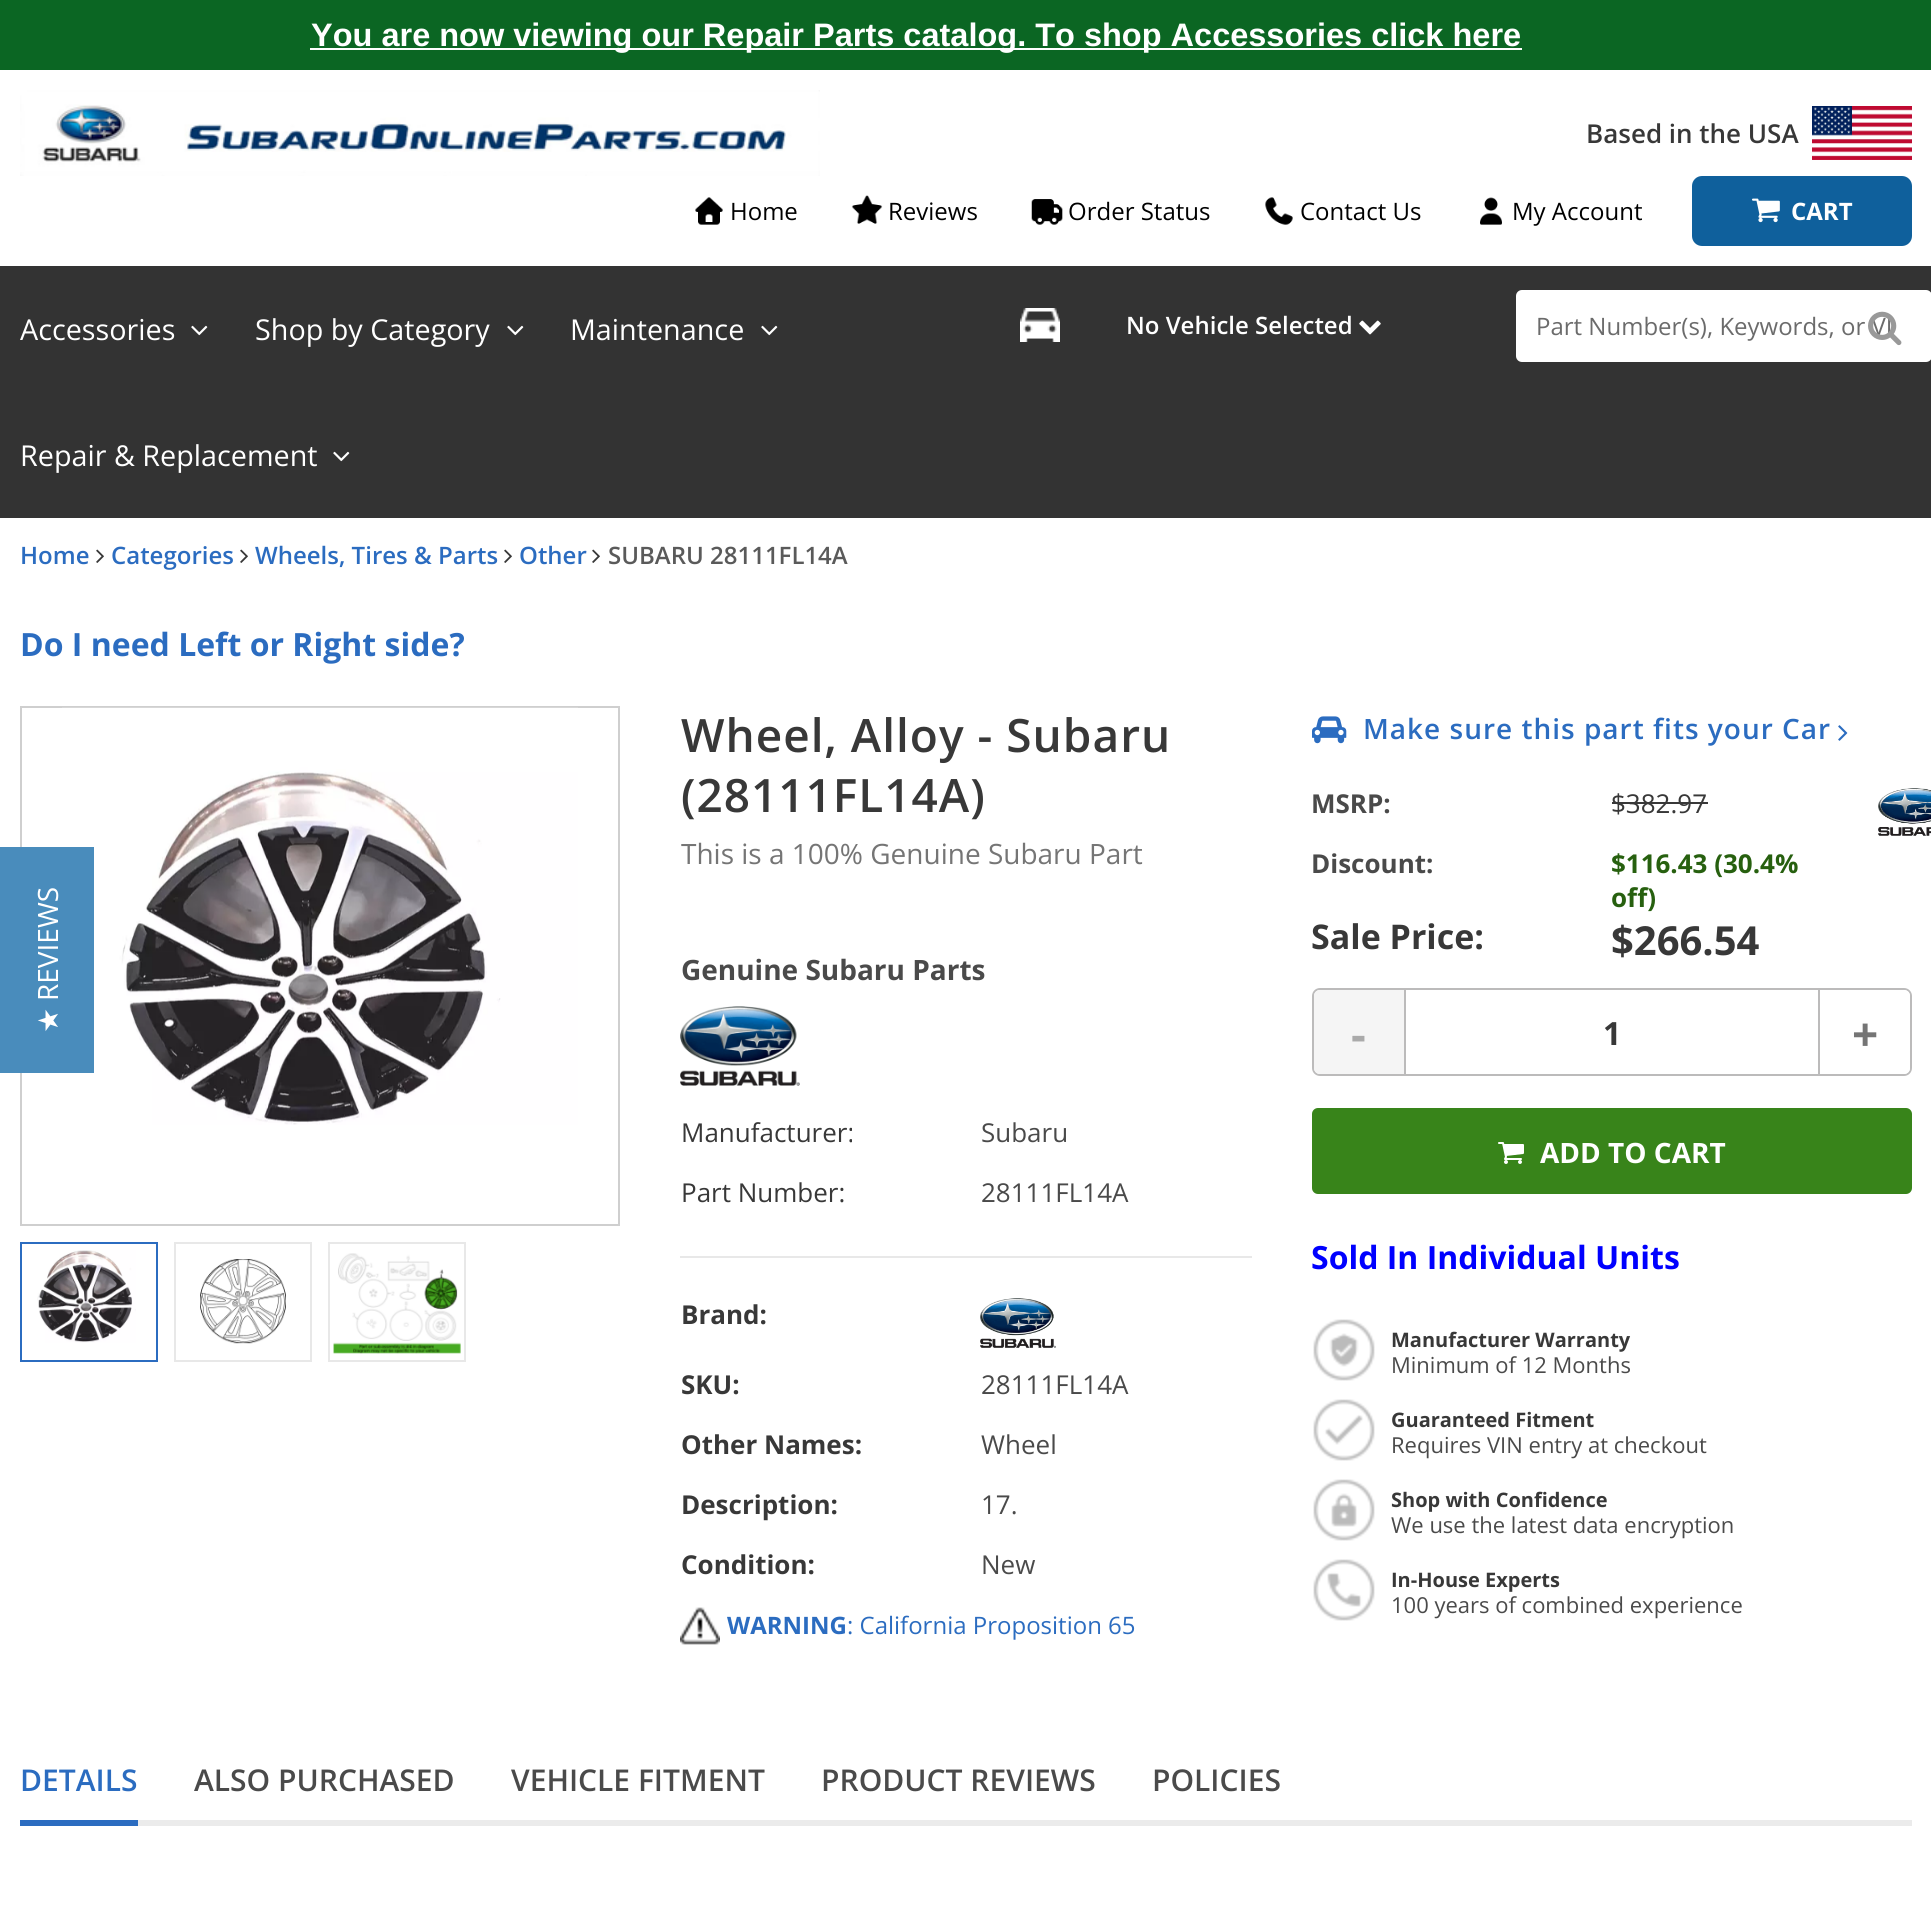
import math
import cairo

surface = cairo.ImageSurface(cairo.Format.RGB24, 1931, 1919)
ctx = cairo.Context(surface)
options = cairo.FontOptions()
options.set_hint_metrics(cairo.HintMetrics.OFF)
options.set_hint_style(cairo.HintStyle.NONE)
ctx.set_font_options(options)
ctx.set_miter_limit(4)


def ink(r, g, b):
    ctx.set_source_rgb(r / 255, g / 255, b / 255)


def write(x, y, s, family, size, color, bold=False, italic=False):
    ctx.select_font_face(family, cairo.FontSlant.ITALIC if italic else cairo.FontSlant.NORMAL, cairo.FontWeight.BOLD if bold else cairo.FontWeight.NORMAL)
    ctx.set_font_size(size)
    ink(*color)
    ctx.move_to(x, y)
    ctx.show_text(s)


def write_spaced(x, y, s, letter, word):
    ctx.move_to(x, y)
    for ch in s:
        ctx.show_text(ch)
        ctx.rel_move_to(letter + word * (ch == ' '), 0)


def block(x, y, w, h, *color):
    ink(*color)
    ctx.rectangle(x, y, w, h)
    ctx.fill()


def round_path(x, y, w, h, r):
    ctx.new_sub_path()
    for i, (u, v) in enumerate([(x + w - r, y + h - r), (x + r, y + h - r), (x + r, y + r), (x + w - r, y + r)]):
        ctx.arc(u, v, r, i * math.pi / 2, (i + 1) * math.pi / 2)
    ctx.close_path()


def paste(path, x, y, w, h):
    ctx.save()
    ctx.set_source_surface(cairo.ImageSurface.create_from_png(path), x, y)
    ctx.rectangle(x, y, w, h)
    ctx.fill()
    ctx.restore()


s1 = dict(family="Liberation Sans", size=32.5, color=(255, 255, 255), bold=True)
s2 = dict(family="Open Sans SemiBold", size=26, color=(56, 56, 56))
s3 = dict(family="Open Sans", size=24, color=(0, 0, 0))
s4 = dict(family="Open Sans", size=24, color=(255, 255, 255), bold=True)
s5 = dict(family="Open Sans", size=28.75, color=(255, 255, 255))
s6 = dict(family="Open Sans SemiBold", size=24, color=(255, 255, 255))
s7 = dict(family="Open Sans", size=24, color=(107, 107, 107))
s8 = dict(family="Open Sans SemiBold", size=24, color=(43, 108, 192))
s9 = dict(family="Open Sans SemiBold", size=24, color=(90, 90, 90))
s10 = dict(family="Open Sans", size=32, color=(43, 108, 192), bold=True)
s11 = dict(family="Open Sans", size=28, color=(117, 117, 117))
s12 = dict(family="Open Sans", size=28, color=(74, 74, 74), bold=True)
s13 = dict(family="Open Sans", size=26, color=(56, 56, 56))
s14 = dict(family="Open Sans", size=26, color=(74, 74, 74))
s15 = dict(family="Open Sans", size=26, color=(56, 56, 56), bold=True)
s16 = dict(family="Open Sans", size=24, color=(43, 108, 192), bold=True)
s17 = dict(family="Open Sans", size=24, color=(43, 108, 192))
s18 = dict(family="Open Sans", size=26, color=(74, 74, 74), bold=True)
s19 = dict(family="Open Sans", size=26, color=(39, 96, 15), bold=True)
s20 = dict(family="Open Sans", size=34, color=(56, 56, 56), bold=True)
s21 = dict(family="Open Sans", size=40, color=(56, 56, 56), bold=True)
s22 = dict(family="Open Sans", size=46, color=(170, 170, 170), bold=True)
s23 = dict(family="Open Sans", size=32, color=(56, 56, 56), bold=True)
s24 = dict(family="Open Sans", size=46, color=(117, 117, 117), bold=True)
s25 = dict(family="Open Sans", size=28, color=(255, 255, 255), bold=True)
s26 = dict(family="Open Sans", size=32, color=(0, 0, 255), bold=True)
s27 = dict(family="Open Sans", size=20, color=(56, 56, 56), bold=True)
s28 = dict(family="Open Sans", size=22, color=(74, 74, 74))
s29 = dict(family="Open Sans SemiBold", size=30, color=(43, 108, 192))
s30 = dict(family="Open Sans SemiBold", size=30, color=(74, 74, 74))
s31 = dict(family="Open Sans", size=28, color=(255, 255, 255))
s32 = dict(family="DejaVu Sans", size=28, color=(255, 255, 255))

ink(255, 255, 255)
ctx.paint()
block(0, 0, 1931, 70, 11, 102, 35)
block(310, 48, 1212, 2, 255, 255, 255)
write(311, 46, "You are now viewing our Repair Parts catalog. To shop Accessories click here", **s1)
paste("pic1.png", 20, 90, 800, 86)
write(1586, 143, "Based in the USA", **s2)
paste("pic2.png", 1812, 106, 100, 54)
paste("pic3.png", 695, 197, 28, 28)
write(730, 220, "Home", **s3)
paste("pic4.png", 851, 195, 32, 29)
write(888, 220, "Reviews", **s3)
paste("pic5.png", 1031, 199, 32, 26)
write(1068, 220, "Order Status", **s3)
paste("pic6.png", 1265, 197, 28, 28)
write(1300, 220, "Contact Us", **s3)
paste("pic7.png", 1480, 197, 22, 28)
write(1512, 220, "My Account", **s3)
ink(15, 96, 156)
round_path(1692, 176, 220, 70, 10)
ctx.fill()
paste("pic8.png", 1752, 198, 28, 25)
write(1791, 220, "CART", **s4)
block(0, 266, 1931, 252, 51, 51, 51)
write(20, 340, "Accessories", **s5)
paste("pic9.png", 191, 325, 17, 11)
write(255, 340, "Shop by Category", **s5)
paste("pic9.png", 507, 325, 17, 11)
write(570, 340, "Maintenance", **s5)
paste("pic9.png", 761, 325, 17, 11)
write(20, 466, "Repair & Replacement", **s5)
paste("pic9.png", 333, 451, 17, 11)
paste("pic10.png", 1020, 308, 40, 34)
write(1126, 334, "No Vehicle Selected", **s6)
paste("pic11.png", 1359, 320, 22, 15)
round_path(1516, 290, 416, 72, 6)
ctx.fill()
write(1536, 335, "Part Number(s), Keywords, or VI", **s7)
paste("pic12.png", 1868, 311, 34, 35)
write(20, 564, "Home", **s8)
paste("pic13.png", 96, 549, 8, 14)
write(111, 564, "Categories", **s8)
paste("pic13.png", 240, 549, 8, 14)
write(255, 564, "Wheels, Tires & Parts", **s8)
paste("pic13.png", 504, 549, 8, 14)
write(519, 564, "Other", **s8)
paste("pic13.png", 592, 549, 8, 14)
write(608, 564, "SUBARU 28111FL14A", **s9)
write(20, 656, "Do I need Left or Right side?", **s10)
ctx.rectangle(21, 707, 598, 518)
ink(207, 207, 207)
ctx.stroke()
paste("pic14.png", 62, 707, 516, 418)
ctx.rectangle(21, 1243, 136, 118)
ink(43, 108, 192)
ctx.stroke()
paste("pic15.png", 37, 1250, 99, 93)
ctx.rectangle(175, 1243, 136, 118)
ink(232, 232, 232)
ctx.stroke()
paste("pic16.png", 200, 1259, 86, 85)
ctx.rectangle(329, 1243, 136, 118)
ctx.stroke()
paste("pic17.png", 333, 1253, 128, 101)
ctx.select_font_face("Open Sans SemiBold")
ctx.set_font_size(46)
ink(56, 56, 56)
write_spaced(681, 752, "Wheel, Alloy - Subaru", 1, 0)
write_spaced(681, 812, "(28111FL14A)", 1, 0)
write(681, 864, "This is a 100% Genuine Subaru Part", **s11)
write(681, 980, "Genuine Subaru Parts", **s12)
paste("pic18.png", 680, 1006, 120, 80)
block(680, 1256, 572, 2, 232, 232, 232)
write(681, 1142, "Manufacturer:", **s13)
write(981, 1142, "Subaru", **s14)
write(681, 1202, "Part Number:", **s13)
write(981, 1202, "28111FL14A", **s14)
write(681, 1324, "Brand:", **s15)
paste("pic19.png", 980, 1298, 76, 50)
write(681, 1394, "SKU:", **s15)
write(981, 1394, "28111FL14A", **s14)
write(681, 1454, "Other Names:", **s15)
write(981, 1454, "Wheel", **s14)
write(681, 1514, "Description:", **s15)
write(981, 1514, "17.", **s14)
write(681, 1574, "Condition:", **s15)
write(981, 1574, "New", **s14)
paste("pic20.png", 680, 1607, 40, 38)
write(727, 1634, "WARNING", **s16)
write(847, 1634, ": California Proposition 65", **s17)
paste("pic21.png", 1312, 716, 35, 28)
ctx.select_font_face("Open Sans SemiBold")
ctx.set_font_size(28)
write_spaced(1363, 739, "Make sure this part fits your Car", 1, 0)
paste("pic22.png", 1838, 725, 10, 16)
write(1311, 813, "MSRP:", **s18)
write(1611, 813, "$382.97", **s13)
block(1612, 802, 96, 2, 56, 56, 56)
write(1311, 873, "Discount:", **s18)
write(1611, 873, "$116.43 (30.4%", **s19)
write(1611, 907, "off)", **s19)
write(1311, 949, "Sale Price:", **s20)
write(1611, 955, "$266.54", **s21)
paste("pic23.png", 1878, 788, 53, 48)
round_path(1313, 989, 598, 86, 7)
ink(188, 187, 187)
ctx.stroke()
ink(245, 245, 245)
ctx.new_path()
ctx.move_to(1320, 990)
ctx.line_to(1406, 990)
ctx.line_to(1406, 1074)
ctx.line_to(1320, 1074)
ctx.curve_to(1316.5, 1074, 1314, 1071.5, 1314, 1068)
ctx.line_to(1314, 996)
ctx.curve_to(1314, 992.5, 1316.5, 990, 1320, 990)
ctx.close_path()
ctx.fill()
block(1404, 990, 2, 84, 188, 187, 187)
write(1351, 1051, "-", **s22)
write(1603, 1045, "1", **s23)
ink(255, 255, 255)
ctx.new_path()
ctx.move_to(1818, 990)
ctx.line_to(1904, 990)
ctx.curve_to(1907.5, 990, 1910, 992.5, 1910, 996)
ctx.line_to(1910, 1068)
ctx.curve_to(1910, 1071.5, 1907.5, 1074, 1904, 1074)
ctx.line_to(1818, 1074)
ctx.close_path()
ctx.fill()
block(1818, 990, 2, 84, 188, 187, 187)
write(1852, 1051, "+", **s24)
ink(56, 132, 26)
round_path(1312, 1108, 600, 86, 6)
ctx.fill()
paste("pic24.png", 1498, 1142, 26, 22)
write(1540, 1163, "ADD TO CART", **s25)
write(1311, 1269, "Sold In Individual Units", **s26)
paste("pic25.png", 1313, 1319, 62, 62)
write(1391, 1347, "Manufacturer Warranty", **s27)
write(1391, 1373, "Minimum of 12 Months", **s28)
paste("pic26.png", 1313, 1399, 62, 62)
write(1391, 1427, "Guaranteed Fitment", **s27)
write(1391, 1453, "Requires VIN entry at checkout", **s28)
paste("pic27.png", 1313, 1479, 62, 62)
write(1391, 1507, "Shop with Confidence", **s27)
write(1391, 1533, "We use the latest data encryption", **s28)
paste("pic28.png", 1313, 1559, 62, 62)
write(1391, 1587, "In-House Experts", **s27)
write(1391, 1613, "100 years of combined experience", **s28)
block(138, 1820, 1774, 6, 235, 235, 235)
block(20, 1820, 118, 6, 43, 108, 192)
write(20, 1791, "DETAILS", **s29)
write(194, 1791, "ALSO PURCHASED", **s30)
write(511, 1791, "VEHICLE FITMENT", **s30)
write(821, 1791, "PRODUCT REVIEWS", **s30)
write(1152, 1791, "POLICIES", **s30)
block(0, 847, 94, 226, 73, 140, 188)
ctx.save()
ctx.translate(58, 1001)
ctx.rotate(-90 * math.pi / 180)
write(0, 0, "REVIEWS", **s31)
ctx.restore()
ctx.save()
ctx.translate(58, 1033)
ctx.rotate(-90 * math.pi / 180)
write(0, 0, "★", **s32)
ctx.restore()
surface.write_to_png("screenshot.png")
